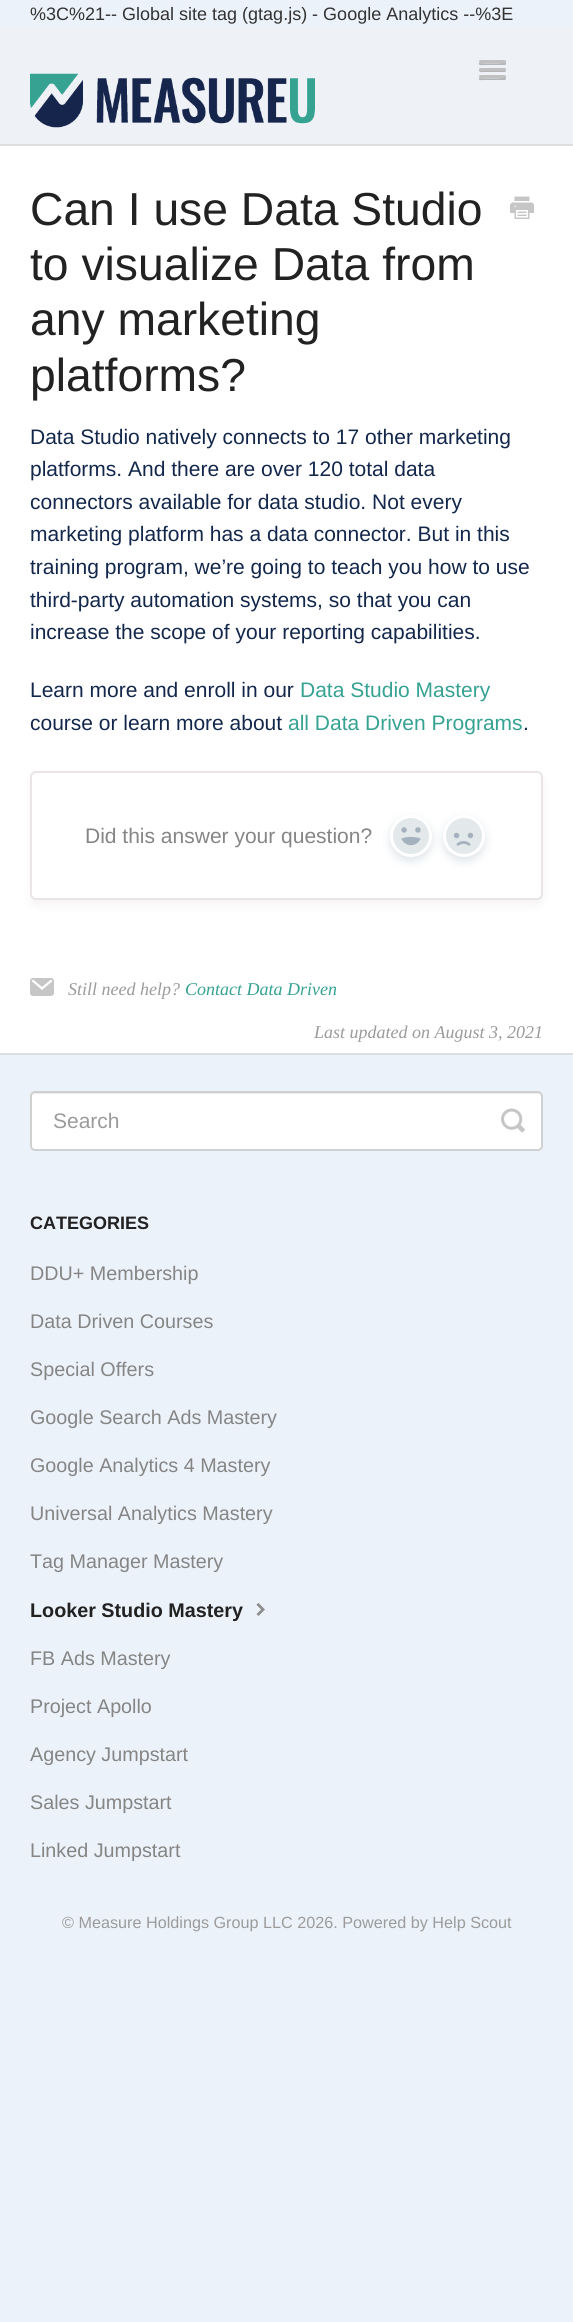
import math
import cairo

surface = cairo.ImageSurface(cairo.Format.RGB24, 573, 2322)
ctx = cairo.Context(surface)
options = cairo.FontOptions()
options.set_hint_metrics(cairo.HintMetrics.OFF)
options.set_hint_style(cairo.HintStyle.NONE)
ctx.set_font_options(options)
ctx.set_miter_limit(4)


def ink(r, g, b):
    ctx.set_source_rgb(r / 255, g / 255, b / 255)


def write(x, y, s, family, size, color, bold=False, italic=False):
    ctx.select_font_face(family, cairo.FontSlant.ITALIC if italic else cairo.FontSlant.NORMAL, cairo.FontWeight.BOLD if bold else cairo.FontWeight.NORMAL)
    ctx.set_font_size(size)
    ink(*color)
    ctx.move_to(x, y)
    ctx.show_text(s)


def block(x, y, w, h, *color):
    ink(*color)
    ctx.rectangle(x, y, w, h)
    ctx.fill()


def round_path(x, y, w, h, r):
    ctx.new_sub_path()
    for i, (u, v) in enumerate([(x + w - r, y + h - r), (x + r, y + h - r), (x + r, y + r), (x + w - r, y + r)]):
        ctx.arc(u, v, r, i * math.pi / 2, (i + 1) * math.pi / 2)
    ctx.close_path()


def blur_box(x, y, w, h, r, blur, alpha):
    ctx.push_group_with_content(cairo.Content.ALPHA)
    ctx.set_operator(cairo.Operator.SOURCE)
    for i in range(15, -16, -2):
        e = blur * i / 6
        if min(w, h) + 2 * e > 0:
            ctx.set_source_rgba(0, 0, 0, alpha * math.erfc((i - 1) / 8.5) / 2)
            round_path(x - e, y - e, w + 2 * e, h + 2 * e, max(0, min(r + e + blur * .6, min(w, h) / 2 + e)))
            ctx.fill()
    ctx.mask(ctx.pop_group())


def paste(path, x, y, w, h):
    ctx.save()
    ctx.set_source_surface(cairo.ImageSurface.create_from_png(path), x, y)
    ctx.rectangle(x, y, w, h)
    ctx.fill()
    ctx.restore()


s1 = dict(family="Liberation Sans", size=18, color=(51, 51, 51))
s2 = dict(family="Liberation Sans", size=46.25, color=(34, 34, 34))
s3 = dict(family="Liberation Sans", size=21, color=(19, 39, 75))
s4 = dict(family="Liberation Sans", size=21, color=(53, 162, 146))
s5 = dict(family="Liberation Sans", size=21, color=(133, 133, 133))
s6 = dict(family="Liberation Serif", size=18, color=(155, 155, 155), italic=True)
s7 = dict(family="Liberation Serif", size=18, color=(53, 162, 146), italic=True)
s8 = dict(family="Liberation Sans", size=21, color=(155, 155, 155))
s9 = dict(family="Liberation Sans", size=18, color=(34, 34, 34), bold=True)
s10 = dict(family="Liberation Sans", size=19.75, color=(133, 133, 133))
s11 = dict(family="Liberation Sans", size=19.75, color=(34, 34, 34), bold=True)
s12 = dict(family="Liberation Sans", size=16.2, color=(155, 155, 155))

ink(236, 242, 249)
ctx.paint()
write(30, 20, "%3C%21-- Global site tag (gtag.js) - Google Analytics --%3E", **s1)
block(0, 27, 573, 117, 238, 241, 246)
ink(179, 181, 185)
ctx.new_path()
ctx.move_to(479, 63)
ctx.curve_to(477.5, 66, 484.5, 65, 484.5, 65)
ctx.line_to(505, 65)
ctx.curve_to(506, 64.5, 506.5, 63, 505.5, 62)
ctx.line_to(504, 63)
ctx.curve_to(502, 63.5, 480, 63.5, 479, 63)
ctx.close_path()
ctx.fill()
ink(192, 192, 192)
round_path(479, 60, 27, 3, 1.5)
ctx.fill()
ink(179, 181, 185)
ctx.new_path()
ctx.move_to(479, 70)
ctx.curve_to(478.5, 73, 484, 72, 484.5, 72)
ctx.line_to(504.5, 72)
ctx.curve_to(506, 72, 506.5, 70, 505.5, 69.5)
ctx.line_to(504.5, 70.5)
ctx.curve_to(503, 71, 479.5, 70.5, 479, 70)
ctx.close_path()
ctx.fill()
ink(192, 192, 192)
round_path(479, 68, 27, 3, 1.5)
ctx.fill()
ink(179, 181, 185)
ctx.new_path()
ctx.move_to(479, 78)
ctx.curve_to(477.5, 81, 484.5, 80, 484.5, 80)
ctx.line_to(505, 80)
ctx.curve_to(506, 79.5, 506.5, 78, 505.5, 77)
ctx.line_to(504, 78)
ctx.curve_to(502, 78.5, 480, 78.5, 479, 78)
ctx.close_path()
ctx.fill()
ink(192, 192, 192)
round_path(479, 75, 27, 3, 1.5)
ctx.fill()
paste("pic1.png", 30, 73, 285, 55)
block(0, 146, 573, 907, 255, 255, 255)
block(0, 144, 573, 2, 222, 222, 222)
block(0, 1053, 573, 2, 222, 222, 222)
write(30, 225, "Can I use Data Studio", **s2)
write(30, 280, "to visualize Data from", **s2)
write(30, 335, "any marketing", **s2)
write(30, 391, "platforms?", **s2)
paste("pic2.png", 510, 196, 24, 23)
write(30, 444, "Data Studio natively connects to 17 other marketing", **s3)
write(30, 476, "platforms. And there are over 120 total data", **s3)
write(30, 509, "connectors available for data studio. Not every", **s3)
write(30, 541, "marketing platform has a data connector. But in this", **s3)
write(30, 574, "training program, we’re going to teach you how to use", **s3)
write(30, 607, "third-party automation systems, so that you can", **s3)
write(30, 639, "increase the scope of your reporting capabilities.", **s3)
write(30, 697, "Learn more and enroll in our", **s3)
write(300, 697, "Data Studio Mastery", **s4)
write(30, 730, "course or learn more about", **s3)
write(288, 730, "all Data Driven Programs", **s4)
write(523, 730, ".", **s3)
ink(0, 0, 0)
blur_box(30, 776, 513, 129, 6, 4.5, 0.05)
ink(255, 255, 255)
round_path(31, 772, 511, 127, 5)
ctx.fill_preserve()
ink(233, 229, 229)
ctx.stroke()
write(85, 843, "Did this answer your question?", **s5)
ink(193, 203, 212)
blur_box(390, 819, 42, 42, 21, 4.5, 0.5)
ink(227, 232, 235)
ctx.arc(411, 836, 19.5, 0, 2 * math.pi)
ctx.fill_preserve()
ink(255, 255, 255)
ctx.set_line_width(3)
ctx.stroke()
paste("pic3.png", 401, 827, 20, 19)
ink(193, 203, 212)
blur_box(443, 819, 42, 42, 21, 4.5, 0.5)
ink(227, 232, 235)
ctx.arc(464, 836, 19.5, 0, 2 * math.pi)
ctx.fill_preserve()
ink(255, 255, 255)
ctx.stroke()
paste("pic4.png", 453, 832, 21, 14)
paste("pic5.png", 30, 978, 24, 18)
write(68, 995, "Still need help?", **s6)
write(185, 995, "Contact Data Driven", **s7)
write(314, 1038, "Last updated on August 3, 2021", **s6)
ink(255, 255, 255)
round_path(30, 1091, 513, 60, 5)
ctx.fill()
ink(236, 236, 236)
ctx.new_path()
ctx.move_to(34, 1094)
ctx.line_to(538, 1094)
ctx.curve_to(540, 1094, 542, 1095, 542, 1096)
ctx.line_to(542, 1094)
ctx.line_to(540, 1092)
ctx.line_to(35, 1092)
ctx.curve_to(33, 1092, 32, 1094, 32, 1096)
ctx.curve_to(32, 1095, 33, 1094, 34, 1094)
ctx.close_path()
ctx.fill()
round_path(31, 1092, 511, 58, 4)
ink(208, 208, 208)
ctx.set_line_width(2)
ctx.stroke()
write(53, 1128, "Search", **s8)
paste("pic6.png", 501, 1108, 24, 25)
write(30, 1229, "CATEGORIES", **s9)
write(30, 1280, "DDU+ Membership", **s10)
write(30, 1328, "Data Driven Courses", **s10)
write(30, 1376, "Special Offers", **s10)
write(30, 1424, "Google Search Ads Mastery", **s10)
write(30, 1472, "Google Analytics 4 Mastery", **s10)
write(30, 1520, "Universal Analytics Mastery", **s10)
write(30, 1568, "Tag Manager Mastery", **s10)
write(30, 1617, "Looker Studio Mastery", **s11)
paste("pic7.png", 256, 1603, 9, 13)
write(30, 1665, "FB Ads Mastery", **s10)
write(30, 1713, "Project Apollo", **s10)
write(30, 1761, "Agency Jumpstart", **s10)
write(30, 1809, "Sales Jumpstart", **s10)
write(30, 1857, "Linked Jumpstart", **s10)
write(62, 1928, "© Measure Holdings Group LLC 2026. Powered by Help Scout", **s12)
surface.write_to_png("screenshot.png")
